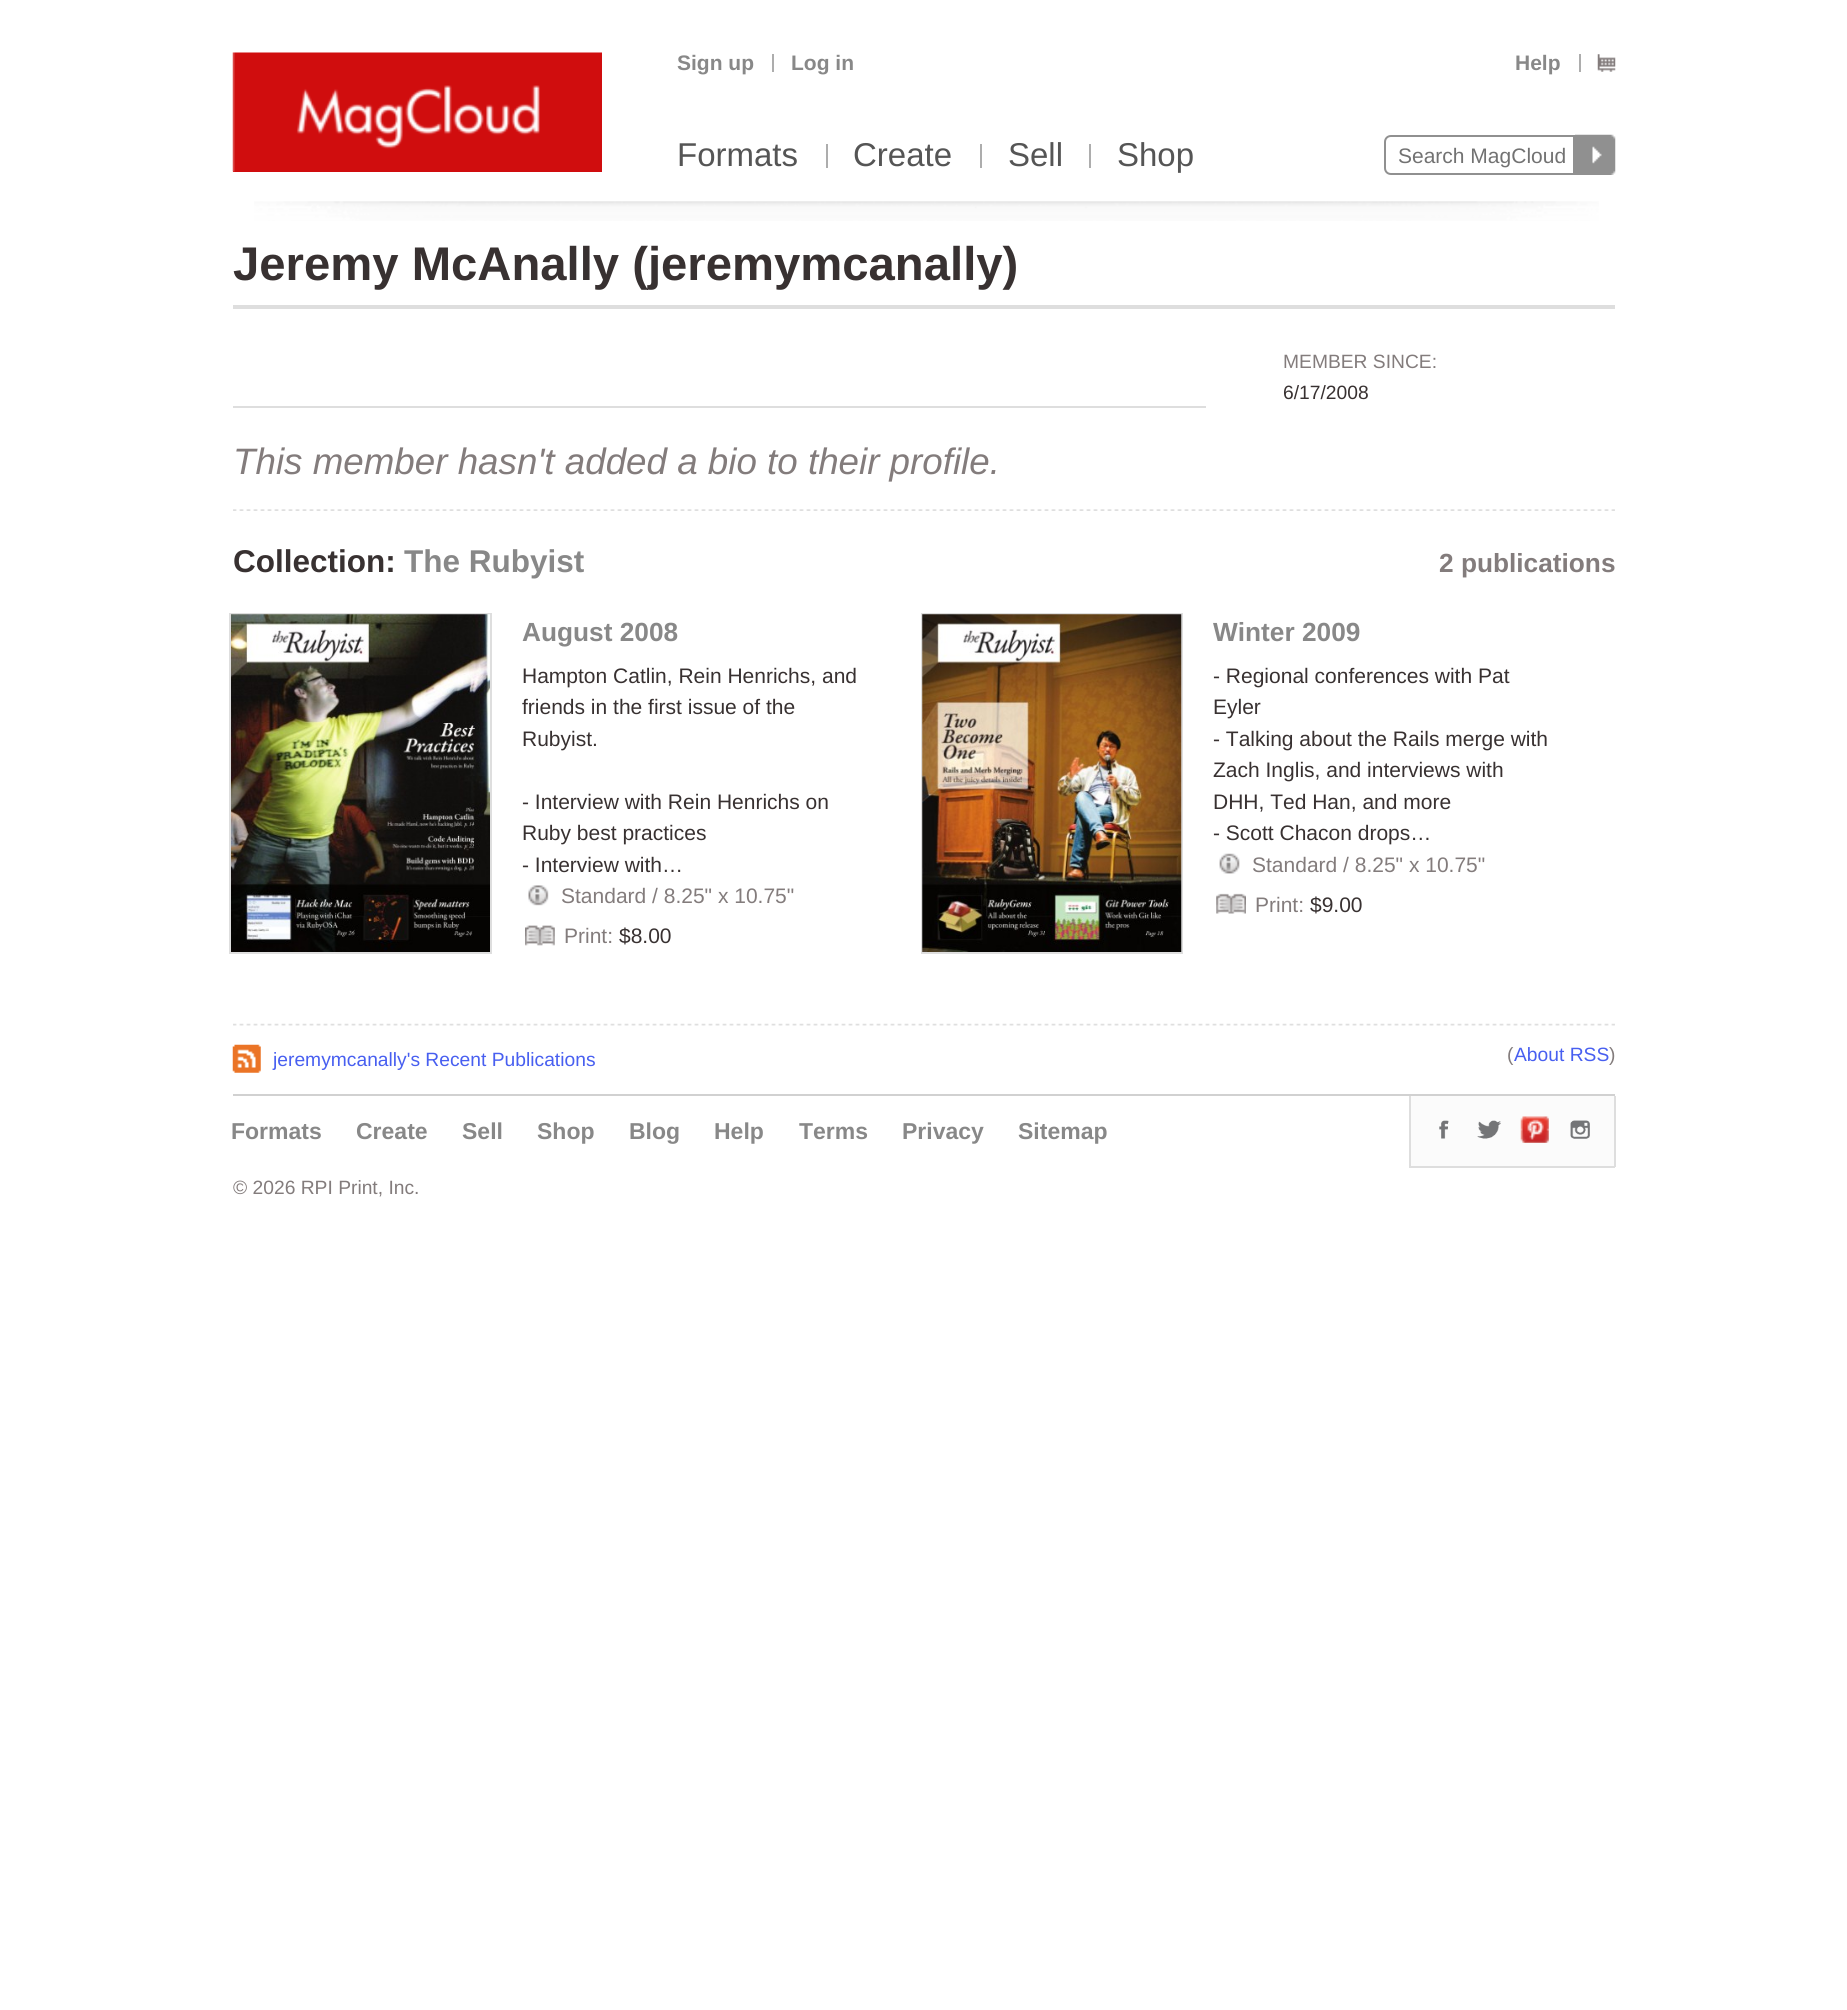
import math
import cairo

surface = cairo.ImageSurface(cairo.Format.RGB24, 1847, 2010)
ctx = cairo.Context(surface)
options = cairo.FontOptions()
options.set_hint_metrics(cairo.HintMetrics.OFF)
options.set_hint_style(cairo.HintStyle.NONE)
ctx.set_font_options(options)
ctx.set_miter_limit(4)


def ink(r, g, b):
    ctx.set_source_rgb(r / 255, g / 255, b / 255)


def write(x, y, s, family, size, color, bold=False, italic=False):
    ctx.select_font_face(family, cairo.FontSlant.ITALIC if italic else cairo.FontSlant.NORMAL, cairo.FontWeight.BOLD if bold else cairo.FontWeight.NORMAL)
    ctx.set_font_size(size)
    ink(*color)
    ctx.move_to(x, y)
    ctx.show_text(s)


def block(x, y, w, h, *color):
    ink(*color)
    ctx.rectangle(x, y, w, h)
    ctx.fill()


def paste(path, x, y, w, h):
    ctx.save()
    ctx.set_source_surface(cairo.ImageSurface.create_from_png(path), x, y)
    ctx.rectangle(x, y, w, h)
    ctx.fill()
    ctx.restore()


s1 = dict(family="Liberation Sans", size=21, color=(136, 136, 136), bold=True)
s2 = dict(family="Liberation Sans", size=33, color=(85, 85, 85))
s3 = dict(family="Liberation Sans", size=21, color=(114, 114, 114))
s4 = dict(family="Liberation Sans", size=47.25, color=(56, 49, 49), bold=True)
s5 = dict(family="Liberation Sans", size=19.25, color=(131, 124, 124))
s6 = dict(family="Liberation Sans", size=19.25, color=(56, 49, 49))
s7 = dict(family="Liberation Sans", size=36.75, color=(131, 124, 124), italic=True)
s8 = dict(family="Liberation Sans", size=31.5, color=(56, 49, 49), bold=True)
s9 = dict(family="Liberation Sans", size=31.5, color=(136, 136, 136), bold=True)
s10 = dict(family="Liberation Sans", size=26.25, color=(131, 124, 124), bold=True)
s11 = dict(family="Liberation Sans", size=26.25, color=(136, 136, 136), bold=True)
s12 = dict(family="Liberation Sans", size=21, color=(56, 49, 49))
s13 = dict(family="Liberation Sans", size=21, color=(131, 124, 124))
s14 = dict(family="Liberation Sans", size=19.25, color=(72, 95, 240))
s15 = dict(family="Liberation Sans", size=23, color=(136, 136, 136), bold=True)

ink(255, 255, 255)
ctx.paint()
block(233, 171, 369, 1, 208, 13, 14)
paste("pic1.png", 232, 52, 370, 120)
write(677, 70, "Sign up", **s1)
block(772, 54, 2, 18, 173, 173, 173)
write(791, 70, "Log in", **s1)
write(1515, 70, "Help", **s1)
block(1579, 54, 2, 18, 173, 173, 173)
paste("pic2.png", 1597, 54, 19, 18)
write(677, 166, "Formats", **s2)
block(826, 144, 2, 24, 173, 173, 173)
write(853, 166, "Create", **s2)
block(980, 144, 2, 24, 173, 173, 173)
write(1008, 166, "Sell", **s2)
block(1089, 144, 2, 24, 173, 173, 173)
write(1117, 166, "Shop", **s2)
ctx.new_path()
ctx.move_to(1391, 136)
ctx.line_to(1574, 136)
ctx.line_to(1574, 174)
ctx.line_to(1391, 174)
ctx.curve_to(1387.5, 174, 1385, 171.5, 1385, 168)
ctx.line_to(1385, 142)
ctx.curve_to(1385, 138.5, 1387.5, 136, 1391, 136)
ctx.close_path()
ink(144, 144, 144)
ctx.stroke()
write(1398, 163, "Search MagCloud", **s3)
paste("pic3.png", 1575, 134, 41, 41)
paste("pic4.png", 254, 201, 1345, 20)
write(233, 280, "Jeremy McAnally (jeremymcanally)", **s4)
block(233, 305, 1382, 4, 222, 222, 222)
write(1283, 368, "MEMBER SINCE:", **s5)
write(1283, 399, "6/17/2008", **s6)
block(233, 406, 973, 2, 222, 222, 222)
write(233, 474, "This member hasn't added a bio to their profile.", **s7)
paste("pic5.png", 233, 509, 1382, 2)
write(233, 572, "Collection:", **s8)
write(404, 572, "The Rubyist", **s9)
write(1439, 572, "2 publications", **s10)
ctx.rectangle(230, 614, 261, 339)
ink(222, 222, 222)
ctx.stroke()
paste("pic6.png", 231, 614, 259, 338)
write(522, 641, "August 2008", **s11)
write(522, 683, "Hampton Catlin, Rein Henrichs, and", **s12)
write(522, 714, "friends in the first issue of the", **s12)
write(522, 746, "Rubyist.", **s12)
write(522, 809, "- Interview with Rein Henrichs on", **s12)
write(522, 840, "Ruby best practices", **s12)
write(522, 872, "- Interview with…", **s12)
paste("pic7.png", 528, 885, 21, 21)
write(561, 903, "Standard / 8.25\" x 10.75\"", **s13)
paste("pic8.png", 525, 925, 30, 21)
write(564, 943, "Print:", **s13)
write(619, 943, "$8.00", **s12)
ctx.rectangle(922, 614, 260, 339)
ink(222, 222, 222)
ctx.stroke()
paste("pic9.png", 922, 614, 260, 338)
write(1213, 641, "Winter 2009", **s11)
write(1213, 683, "- Regional conferences with Pat", **s12)
write(1213, 714, "Eyler", **s12)
write(1213, 746, "- Talking about the Rails merge with", **s12)
write(1213, 777, "Zach Inglis, and interviews with", **s12)
write(1213, 809, "DHH, Ted Han, and more", **s12)
write(1213, 840, "- Scott Chacon drops…", **s12)
paste("pic10.png", 1219, 853, 21, 21)
write(1252, 872, "Standard / 8.25\" x 10.75\"", **s13)
paste("pic11.png", 1216, 893, 30, 21)
write(1255, 912, "Print:", **s13)
write(1310, 912, "$9.00", **s12)
paste("pic12.png", 233, 1023, 1382, 3)
paste("pic13.png", 232, 1044, 29, 29)
write(273, 1066, "jeremymcanally's Recent Publications", **s14)
write(1507, 1061, "(", **s5)
write(1514, 1061, "About RSS", **s14)
write(1609, 1061, ")", **s5)
block(233, 1094, 1382, 2, 209, 209, 209)
write(231, 1139, "Formats", **s15)
write(356, 1139, "Create", **s15)
write(462, 1139, "Sell", **s15)
write(537, 1139, "Shop", **s15)
write(629, 1139, "Blog", **s15)
write(714, 1139, "Help", **s15)
write(799, 1139, "Terms", **s15)
write(902, 1139, "Privacy", **s15)
write(1018, 1139, "Sitemap", **s15)
block(1411, 1096, 203, 70, 251, 251, 251)
block(1614, 1096, 2, 71, 222, 222, 222)
block(1409, 1166, 206, 2, 222, 222, 222)
block(1409, 1096, 2, 71, 222, 222, 222)
paste("pic14.png", 1439, 1120, 10, 19)
paste("pic15.png", 1477, 1120, 24, 19)
paste("pic16.png", 1520, 1116, 29, 27)
paste("pic17.png", 1570, 1120, 20, 19)
write(233, 1194, "© 2026 RPI Print, Inc.", **s5)
surface.write_to_png("screenshot.png")
